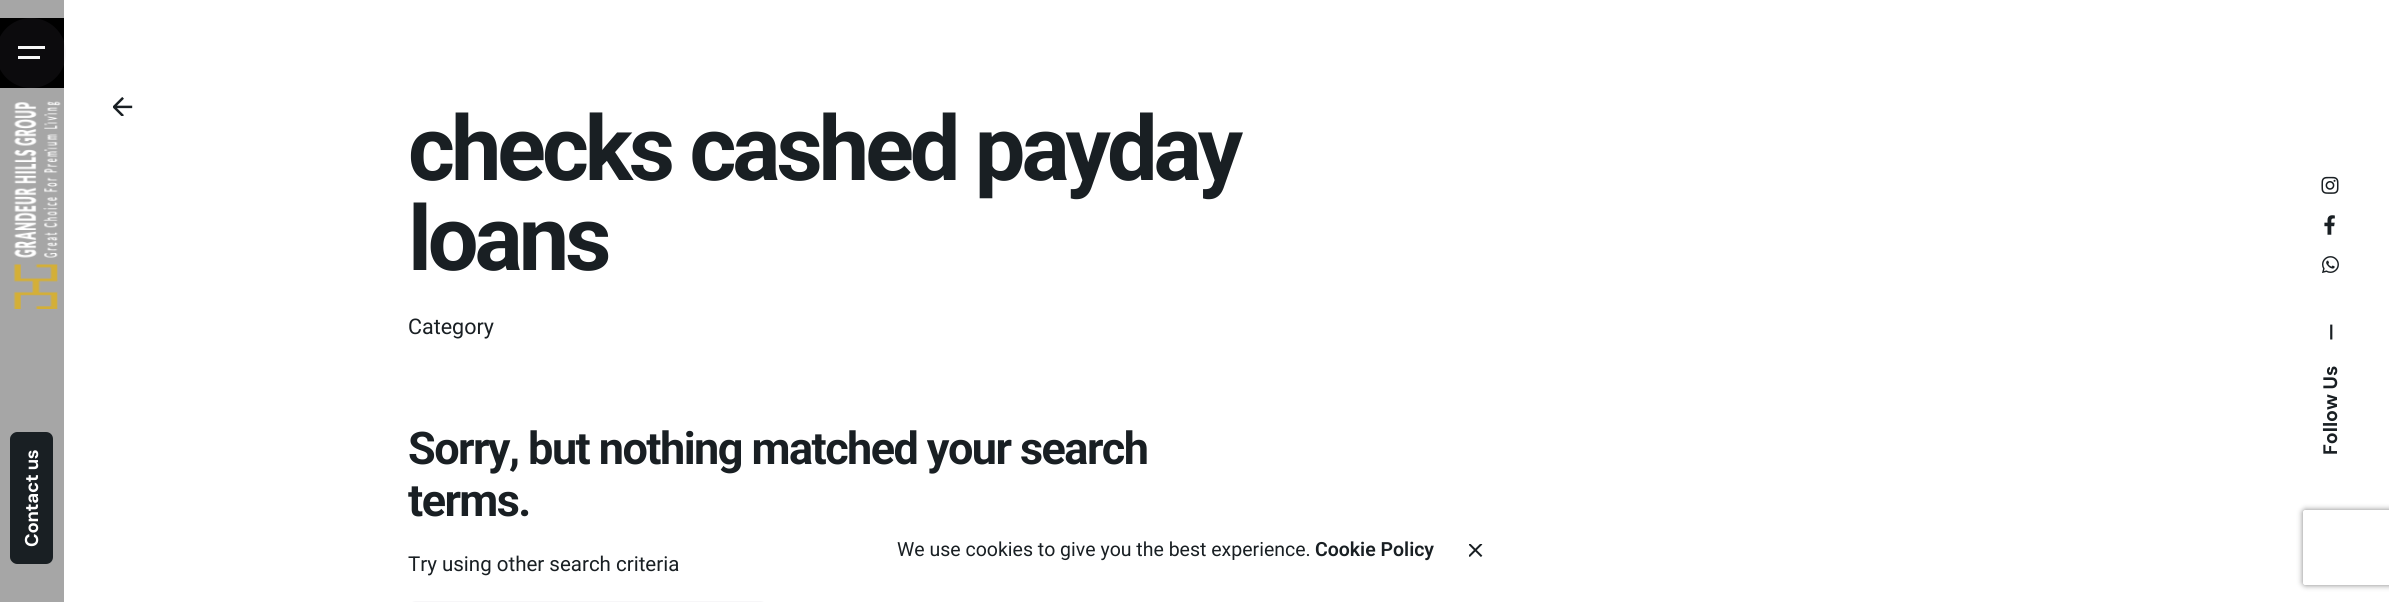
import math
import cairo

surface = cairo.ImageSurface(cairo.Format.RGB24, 2389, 602)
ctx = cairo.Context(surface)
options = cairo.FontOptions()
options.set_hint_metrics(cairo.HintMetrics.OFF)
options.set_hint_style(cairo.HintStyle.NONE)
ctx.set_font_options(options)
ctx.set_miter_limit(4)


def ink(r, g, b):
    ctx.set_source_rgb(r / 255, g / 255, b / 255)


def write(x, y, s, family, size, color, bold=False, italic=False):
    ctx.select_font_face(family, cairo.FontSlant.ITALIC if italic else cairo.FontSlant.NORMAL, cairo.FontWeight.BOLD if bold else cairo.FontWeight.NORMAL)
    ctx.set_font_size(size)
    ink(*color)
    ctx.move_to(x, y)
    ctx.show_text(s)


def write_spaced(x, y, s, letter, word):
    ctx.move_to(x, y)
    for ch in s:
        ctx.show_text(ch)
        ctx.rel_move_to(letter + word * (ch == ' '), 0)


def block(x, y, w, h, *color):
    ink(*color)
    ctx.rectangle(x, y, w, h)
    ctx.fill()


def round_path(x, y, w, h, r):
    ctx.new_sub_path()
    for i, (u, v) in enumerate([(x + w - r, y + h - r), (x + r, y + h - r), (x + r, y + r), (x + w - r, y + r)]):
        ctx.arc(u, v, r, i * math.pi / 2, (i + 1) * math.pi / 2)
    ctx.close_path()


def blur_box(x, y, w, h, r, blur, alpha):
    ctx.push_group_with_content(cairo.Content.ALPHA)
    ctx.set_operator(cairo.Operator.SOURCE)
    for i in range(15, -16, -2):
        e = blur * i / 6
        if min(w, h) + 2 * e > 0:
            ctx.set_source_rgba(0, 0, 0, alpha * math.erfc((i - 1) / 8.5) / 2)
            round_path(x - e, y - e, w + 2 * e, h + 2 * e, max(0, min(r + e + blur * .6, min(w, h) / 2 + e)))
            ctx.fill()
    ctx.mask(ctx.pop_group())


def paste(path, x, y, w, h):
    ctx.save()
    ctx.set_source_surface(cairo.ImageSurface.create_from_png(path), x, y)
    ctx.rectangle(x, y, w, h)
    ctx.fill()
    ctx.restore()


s1 = dict(family="Roboto", size=21.5, color=(25, 31, 35))
s2 = dict(family="Roboto", size=20.5, color=(25, 31, 35))
s3 = dict(family="Roboto", size=19.5, color=(25, 31, 35))
s4 = dict(family="Roboto SemiBold", size=19.5, color=(25, 31, 35))
s5 = dict(family="DM Sans", size=19.5, color=(25, 31, 35), bold=True)

ink(255, 255, 255)
ctx.paint()
paste("pic1.png", 113, 97, 20, 19)
ctx.select_font_face("Roboto", cairo.FontSlant.NORMAL, cairo.FontWeight.BOLD)
ctx.set_font_size(90)
ink(25, 31, 35)
write_spaced(408, 180, "checks cashed payday", -4, 0)
write_spaced(408, 270, "loans", -4, 0)
write(408, 334, "Category", **s1)
ctx.select_font_face("Roboto", cairo.FontSlant.NORMAL, cairo.FontWeight.BOLD)
ctx.set_font_size(45)
write_spaced(408, 464, "Sorry, but nothing matched your search", -1.55, 0)
write_spaced(408, 516, "terms.", -1.55, 0)
write(408, 571, "Try using other search criteria", **s2)
ink(247, 246, 248)
round_path(408, 601, 360, 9, 8)
ctx.fill()
write(897, 556, "We use cookies to give you the best experience.", **s3)
write(1315, 556, "Cookie Policy", **s4)
paste("pic2.png", 1469, 544, 14, 13)
paste("pic3.png", 2321, 176, 18, 18)
paste("pic4.png", 2324, 215, 11, 20)
paste("pic5.png", 2322, 256, 17, 17)
ctx.save()
ctx.translate(2337, 341)
ctx.rotate(-90 * math.pi / 180)
write(0, 0, "—", **s5)
ctx.restore()
ctx.save()
ctx.translate(2337, 455)
ctx.rotate(-90 * math.pi / 180)
write(0, 0, "Follow Us", **s5)
ctx.restore()
block(0, 0, 64, 602, 166, 166, 166)
block(0, 18, 64, 70, 0, 0, 0)
ctx.set_source_rgba(0.588, 0.565, 0.635, 0.08)
ctx.new_path()
ctx.arc(31, 53, 35, 0, 2 * math.pi)
ctx.fill()
block(18, 46, 27, 3, 247, 247, 247)
block(18, 56, 22, 3, 247, 247, 247)
paste("pic6.png", 13, 101, 48, 208)
ink(25, 31, 35)
ctx.new_path()
ctx.move_to(10, 557)
ctx.line_to(10, 439)
ctx.curve_to(10, 435, 14, 432, 17, 432)
ctx.line_to(46, 432)
ctx.curve_to(50, 432, 53, 435, 53, 439)
ctx.line_to(53, 557)
ctx.curve_to(53, 561, 50, 564, 46, 564)
ctx.line_to(17, 564)
ctx.curve_to(14, 564, 10, 561, 10, 557)
ctx.close_path()
ctx.fill()
ctx.select_font_face("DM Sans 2", cairo.FontSlant.NORMAL, cairo.FontWeight.BOLD)
ctx.set_font_size(18.5)
ink(255, 255, 255)
ctx.save()
ctx.translate(38, 547)
ctx.rotate(-90 * math.pi / 180)
write_spaced(0, 0, "Contact us", -0.25, 0)
ctx.restore()
ctx.save()
ctx.set_fill_rule(cairo.FillRule.EVEN_ODD)
ctx.new_path()
ctx.move_to(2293, 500)
ctx.line_to(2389, 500)
ctx.line_to(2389, 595)
ctx.line_to(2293, 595)
ctx.close_path()
ctx.move_to(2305.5, 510)
ctx.line_to(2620.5, 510)
ctx.curve_to(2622, 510, 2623, 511, 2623, 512.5)
ctx.line_to(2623, 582.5)
ctx.curve_to(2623, 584, 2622, 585, 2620.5, 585)
ctx.line_to(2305.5, 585)
ctx.curve_to(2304, 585, 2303, 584, 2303, 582.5)
ctx.line_to(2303, 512.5)
ctx.curve_to(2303, 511, 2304, 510, 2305.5, 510)
ctx.close_path()
ctx.clip()
ink(128, 128, 128)
blur_box(2303, 510, 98, 75, 2.5, 3, 1)
ctx.restore()
surface.write_to_png("screenshot.png")
